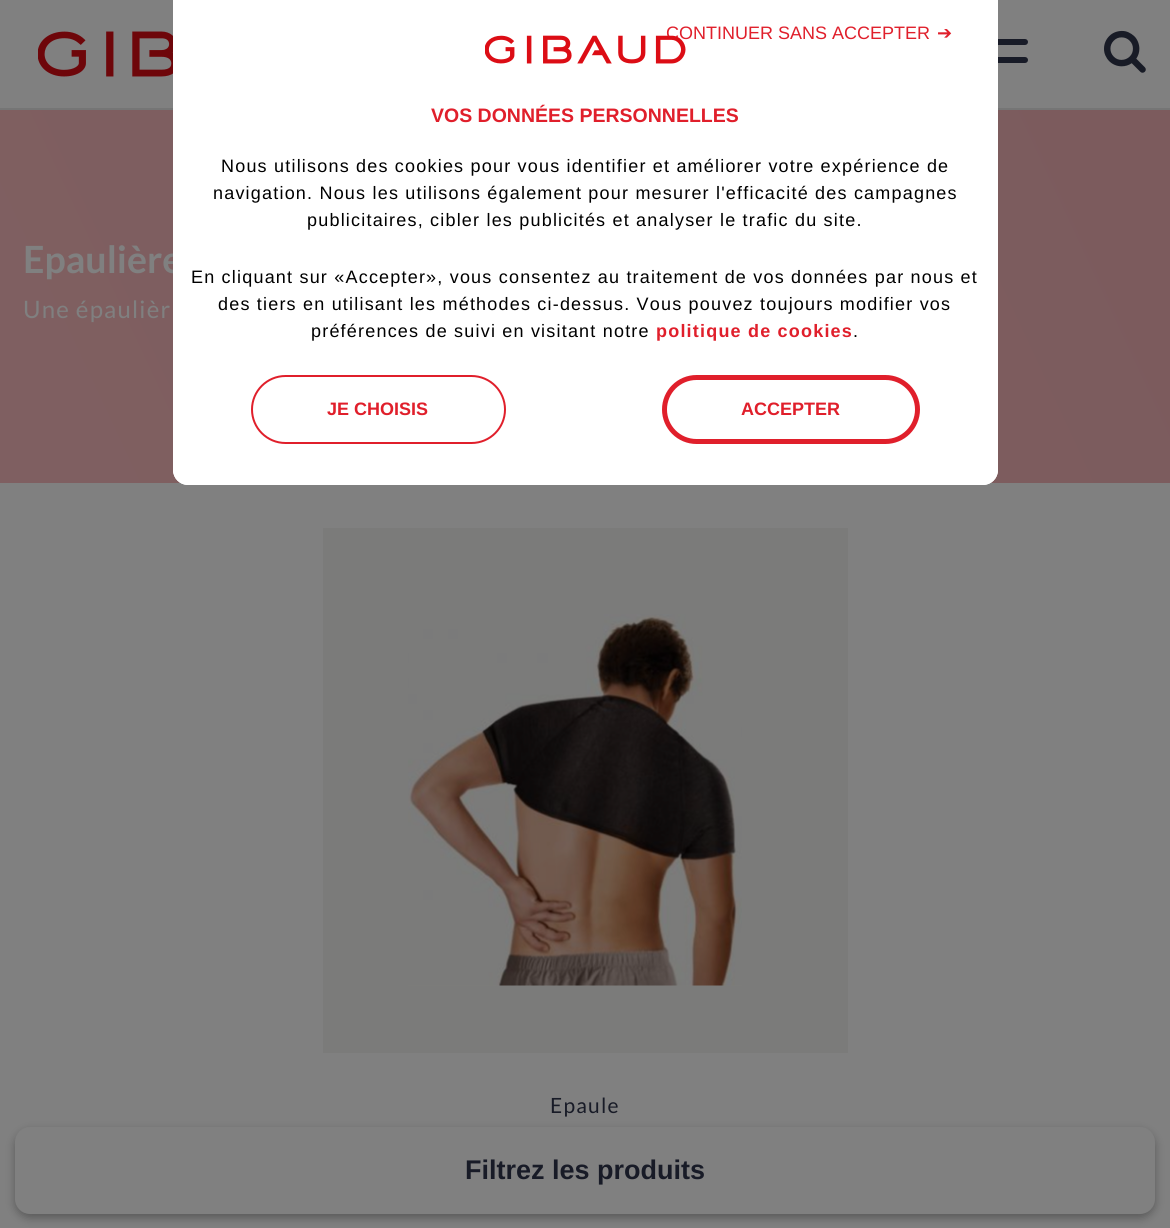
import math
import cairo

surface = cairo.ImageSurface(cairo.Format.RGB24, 1170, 1228)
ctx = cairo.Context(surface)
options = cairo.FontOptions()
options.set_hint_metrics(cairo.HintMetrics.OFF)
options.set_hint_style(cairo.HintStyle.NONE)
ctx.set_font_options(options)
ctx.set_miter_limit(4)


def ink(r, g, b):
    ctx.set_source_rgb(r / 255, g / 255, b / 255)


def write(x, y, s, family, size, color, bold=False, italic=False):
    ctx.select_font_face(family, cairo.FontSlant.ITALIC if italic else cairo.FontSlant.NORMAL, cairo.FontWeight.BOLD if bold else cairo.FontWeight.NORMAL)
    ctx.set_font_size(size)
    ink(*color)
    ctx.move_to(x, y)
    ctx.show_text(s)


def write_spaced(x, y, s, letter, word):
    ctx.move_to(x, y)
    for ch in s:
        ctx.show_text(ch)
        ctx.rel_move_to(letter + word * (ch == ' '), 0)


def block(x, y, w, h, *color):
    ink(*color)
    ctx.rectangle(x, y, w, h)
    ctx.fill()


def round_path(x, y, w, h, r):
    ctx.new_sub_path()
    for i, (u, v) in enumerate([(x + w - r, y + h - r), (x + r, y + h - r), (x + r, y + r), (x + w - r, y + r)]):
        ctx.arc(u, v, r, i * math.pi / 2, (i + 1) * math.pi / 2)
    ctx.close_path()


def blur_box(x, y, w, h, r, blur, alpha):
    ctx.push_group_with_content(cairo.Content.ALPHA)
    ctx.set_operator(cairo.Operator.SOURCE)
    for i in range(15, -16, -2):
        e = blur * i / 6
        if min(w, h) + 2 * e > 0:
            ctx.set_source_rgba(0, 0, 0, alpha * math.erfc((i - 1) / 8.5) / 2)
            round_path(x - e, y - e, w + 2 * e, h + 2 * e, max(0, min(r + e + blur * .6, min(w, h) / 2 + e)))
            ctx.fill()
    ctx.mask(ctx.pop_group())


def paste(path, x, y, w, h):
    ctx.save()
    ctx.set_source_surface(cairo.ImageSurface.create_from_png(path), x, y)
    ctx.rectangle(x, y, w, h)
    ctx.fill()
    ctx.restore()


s1 = dict(family="Lato", size=37.5, color=(128, 128, 128), bold=True)
s2 = dict(family="Liberation Sans", size=18, color=(224, 31, 43))
s3 = dict(family="DejaVu Sans", size=18, color=(224, 31, 43))
s4 = dict(family="Liberation Sans", size=18, color=(224, 31, 43), bold=True)
s5 = dict(family="Liberation Sans", size=19.5, color=(224, 31, 43), bold=True)
s6 = dict(family="Liberation Sans", size=27, color=(24, 27, 39), bold=True)

ink(128, 128, 128)
ctx.paint()
block(0, 108, 1170, 2, 117, 117, 117)
ink(24, 27, 39)
round_path(975, 39, 53, 6, 3)
ctx.fill()
round_path(993, 57, 35, 6, 3)
ctx.fill()
gradient = cairo.LinearGradient(1137, 38, 33, 553)
gradient.add_color_stop_rgba(0, 0.486, 0.357, 0.365, 1)
gradient.add_color_stop_rgba(1, 0.498, 0.373, 0.38, 1)
ctx.set_source(gradient)
ctx.rectangle(0, 110, 1170, 373)
ctx.fill()
write(23, 273, "Epaulière", **s1)
ink(255, 255, 255)
round_path(173, 0, 825, 485, 15)
ctx.fill()
round_path(173, 375, 825, 110, 15)
ctx.fill()
round_path(173, -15, 825, 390, 15)
ctx.fill()
write(666, 39, "CONTINUER SANS ACCEPTER", **s2)
write(937, 39, "➔", **s3)
round_path(252, 376, 253, 67, 33.5)
ctx.stroke()
write(327, 415, "JE CHOISIS", **s4)
round_path(664.5, 377.5, 253, 64, 32)
ctx.set_line_width(5)
ctx.stroke()
write(741, 415, "ACCEPTER", **s4)
paste("pic1.png", 485, 35, 201, 29)
write(431, 122, "VOS DONNÉES PERSONNELLES", **s5)
ctx.select_font_face("Liberation Sans")
ctx.set_font_size(18)
ink(0, 0, 0)
write_spaced(221, 172, "Nous utilisons des cookies pour vous identifier et améliorer votre expérience de", 1.2, 0)
write_spaced(213, 199, "navigation. Nous les utilisons également pour mesurer l'efficacité des campagnes", 1.2, 0)
write_spaced(307, 226, "publicitaires, cibler les publicités et analyser le trafic du site.", 1.2, 0)
write_spaced(191, 283, "En cliquant sur «Accepter», vous consentez au traitement de vos données par nous et", 1.2, 0)
write_spaced(218, 310, "des tiers en utilisant les méthodes ci-dessus. Vous pouvez toujours modifier vos", 1.2, 0)
write_spaced(311, 337, "préférences de suivi en visitant notre", 1.2, 0)
ctx.select_font_face("Liberation Sans", cairo.FontSlant.NORMAL, cairo.FontWeight.BOLD)
ink(224, 31, 43)
write_spaced(656, 337, "politique de cookies", 1.2, 0)
ctx.select_font_face("Liberation Sans")
ink(0, 0, 0)
write_spaced(853, 337, ".", 1.2, 0)
paste("pic2.png", 38, 31, 135, 46)
paste("pic3.png", 1104, 30, 42, 43)
ctx.select_font_face("Lato")
ctx.set_font_size(24)
ink(128, 128, 128)
write_spaced(23, 318, "Une épaulièr", 1.2, 0)
block(323, 528, 525, 525, 123, 123, 122)
paste("pic4.png", 408, 614, 334, 372)
ctx.set_font_size(21)
ink(24, 27, 39)
write_spaced(550, 1113, "Epaule", 1.2, 0)
ink(0, 0, 0)
blur_box(15, 1131, 1140, 87, 15, 4.5, 0.3)
ink(128, 128, 128)
round_path(15, 1127, 1140, 87, 15)
ctx.fill()
write(465, 1179, "Filtrez les produits", **s6)
surface.write_to_png("screenshot.png")
